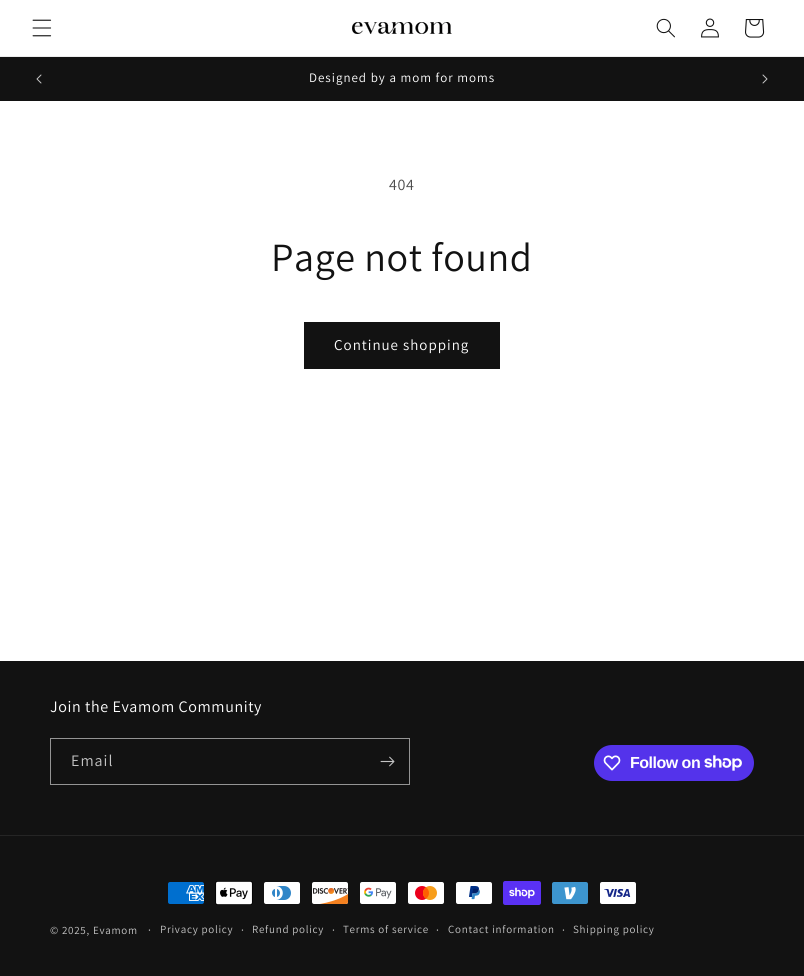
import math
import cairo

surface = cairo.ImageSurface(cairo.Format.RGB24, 804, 976)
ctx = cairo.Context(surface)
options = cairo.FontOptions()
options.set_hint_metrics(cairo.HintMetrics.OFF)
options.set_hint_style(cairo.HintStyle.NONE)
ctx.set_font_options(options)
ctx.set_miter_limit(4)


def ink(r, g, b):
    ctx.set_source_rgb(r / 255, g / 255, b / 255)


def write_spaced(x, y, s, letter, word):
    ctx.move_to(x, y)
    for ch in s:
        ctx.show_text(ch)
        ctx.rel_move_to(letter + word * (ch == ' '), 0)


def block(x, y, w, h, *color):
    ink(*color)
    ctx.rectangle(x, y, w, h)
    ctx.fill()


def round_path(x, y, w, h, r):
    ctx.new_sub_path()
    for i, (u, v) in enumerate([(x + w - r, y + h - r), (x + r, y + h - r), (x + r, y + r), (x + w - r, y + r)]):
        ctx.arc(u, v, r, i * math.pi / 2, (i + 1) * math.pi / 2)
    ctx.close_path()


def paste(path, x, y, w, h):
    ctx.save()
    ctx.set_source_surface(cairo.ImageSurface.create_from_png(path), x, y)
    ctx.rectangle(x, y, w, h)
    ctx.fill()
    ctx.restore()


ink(255, 255, 255)
ctx.paint()
block(0, 56, 804, 1, 236, 236, 236)
paste("pic1.png", 32, 19, 20, 18)
paste("pic2.png", 352, 22, 100, 12)
paste("pic3.png", 656, 18, 19, 20)
paste("pic4.png", 701, 18, 18, 20)
paste("pic5.png", 745, 19, 20, 19)
block(0, 57, 804, 44, 18, 18, 18)
paste("pic6.png", 36, 74, 6, 10)
ctx.select_font_face("Assistant")
ctx.set_font_size(13)
ink(255, 255, 255)
write_spaced(309, 82, "Designed by a mom for moms", 1, 0)
paste("pic7.png", 762, 74, 6, 10)
ctx.set_font_size(16)
ink(77, 77, 77)
write_spaced(389, 190, "404", 0.6, 0)
ctx.set_font_size(40)
ink(18, 18, 18)
write_spaced(271, 271, "Page not found", 0.6, 0)
block(304, 322, 196, 47, 18, 18, 18)
ctx.set_font_size(15)
ink(255, 255, 255)
write_spaced(334, 350, "Continue shopping", 1, 0)
block(0, 661, 804, 315, 18, 18, 18)
ctx.set_font_size(16)
ink(255, 255, 255)
write_spaced(50, 712, "Join the Evamom Community", 0.6, 0)
ctx.rectangle(50.5, 738.5, 359, 46)
ink(148, 148, 148)
ctx.set_line_width(1)
ctx.stroke()
ink(196, 196, 196)
write_spaced(71, 766, "Email", 1, 0)
paste("pic8.png", 380, 756, 15, 11)
ink(84, 51, 235)
round_path(594, 745, 160, 36, 18)
ctx.fill()
paste("pic9.png", 603, 755, 18, 16)
ctx.select_font_face("Liberation Sans", cairo.FontSlant.NORMAL, cairo.FontWeight.BOLD)
ink(255, 255, 255)
write_spaced(630, 768, "Follow on", -0.5, 0)
paste("pic10.png", 704, 755, 38, 16)
block(0, 835, 804, 1, 37, 37, 37)
paste("pic11.png", 168, 882, 36, 22)
paste("pic12.png", 215, 881, 38, 24)
paste("pic13.png", 264, 882, 36, 22)
paste("pic14.png", 312, 882, 36, 22)
paste("pic15.png", 360, 882, 36, 22)
paste("pic16.png", 408, 882, 36, 22)
paste("pic17.png", 456, 882, 36, 22)
paste("pic18.png", 503, 881, 38, 24)
paste("pic19.png", 552, 882, 36, 22)
paste("pic20.png", 600, 882, 36, 22)
ctx.select_font_face("Assistant")
ctx.set_font_size(11)
ink(196, 196, 196)
write_spaced(50, 934, "© 2025, Evamom", 0.75, 0)
ctx.set_font_size(12)
write_spaced(148, 934, "·", 0.75, 0)
ctx.set_font_size(11)
write_spaced(160, 933, "Privacy policy", 0.75, 0)
ctx.set_font_size(12)
write_spaced(241, 934, "·", 0.75, 0)
ctx.set_font_size(11)
write_spaced(252, 933, "Refund policy", 0.75, 0)
ctx.set_font_size(12)
write_spaced(332, 934, "·", 0.75, 0)
ctx.set_font_size(11)
write_spaced(343, 933, "Terms of service", 0.75, 0)
ctx.set_font_size(12)
write_spaced(436, 934, "·", 0.75, 0)
ctx.set_font_size(11)
write_spaced(448, 933, "Contact information", 0.75, 0)
ctx.set_font_size(12)
write_spaced(562, 934, "·", 0.75, 0)
ctx.set_font_size(11)
write_spaced(573, 933, "Shipping policy", 0.75, 0)
surface.write_to_png("screenshot.png")
